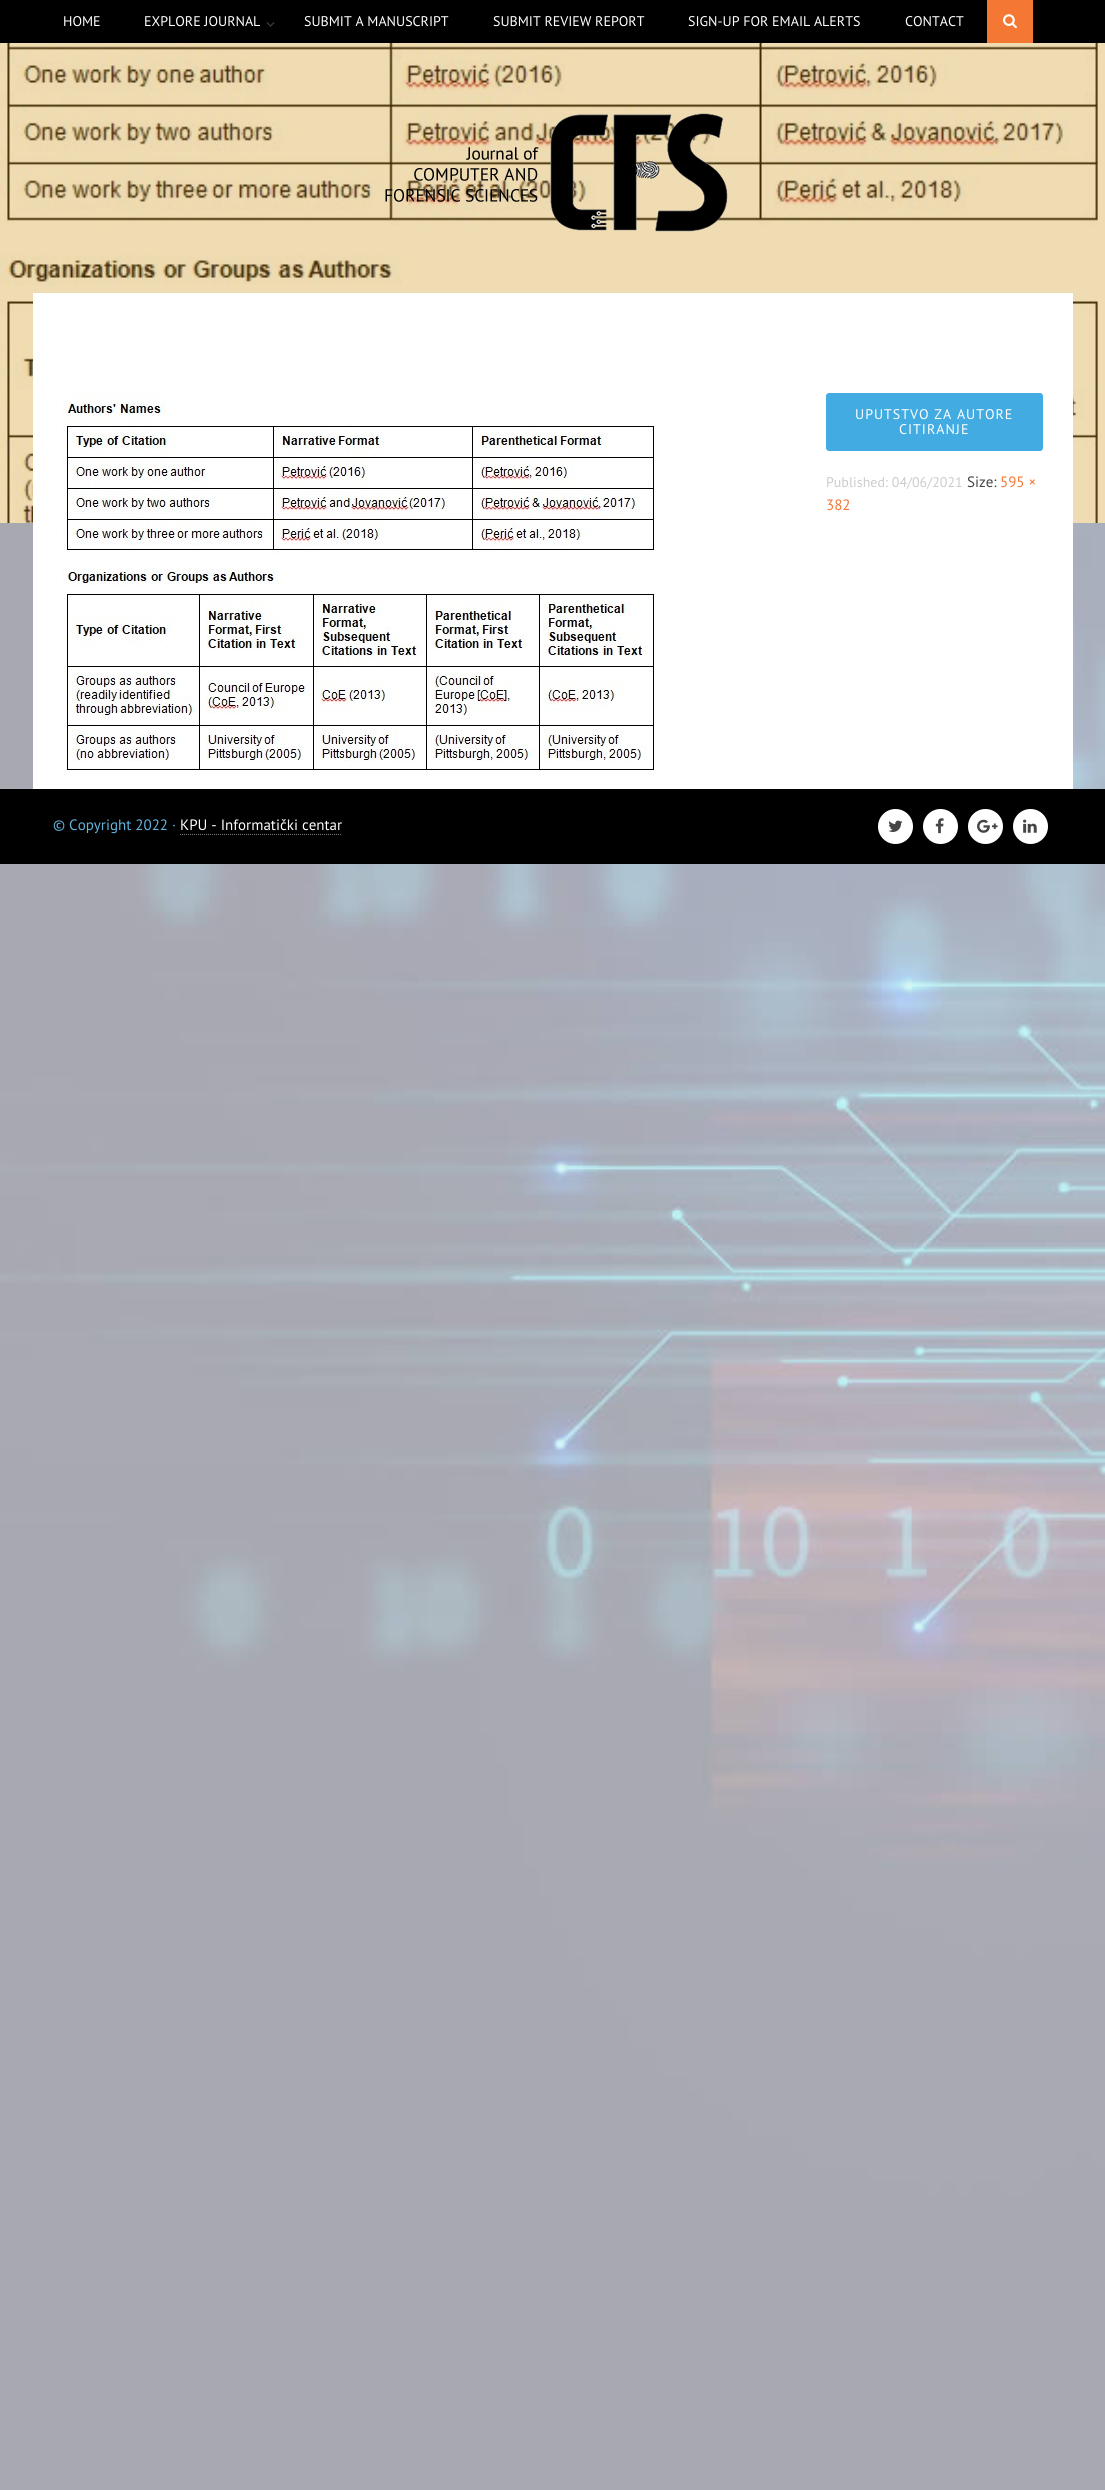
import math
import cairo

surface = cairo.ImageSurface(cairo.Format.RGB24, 1105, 2490)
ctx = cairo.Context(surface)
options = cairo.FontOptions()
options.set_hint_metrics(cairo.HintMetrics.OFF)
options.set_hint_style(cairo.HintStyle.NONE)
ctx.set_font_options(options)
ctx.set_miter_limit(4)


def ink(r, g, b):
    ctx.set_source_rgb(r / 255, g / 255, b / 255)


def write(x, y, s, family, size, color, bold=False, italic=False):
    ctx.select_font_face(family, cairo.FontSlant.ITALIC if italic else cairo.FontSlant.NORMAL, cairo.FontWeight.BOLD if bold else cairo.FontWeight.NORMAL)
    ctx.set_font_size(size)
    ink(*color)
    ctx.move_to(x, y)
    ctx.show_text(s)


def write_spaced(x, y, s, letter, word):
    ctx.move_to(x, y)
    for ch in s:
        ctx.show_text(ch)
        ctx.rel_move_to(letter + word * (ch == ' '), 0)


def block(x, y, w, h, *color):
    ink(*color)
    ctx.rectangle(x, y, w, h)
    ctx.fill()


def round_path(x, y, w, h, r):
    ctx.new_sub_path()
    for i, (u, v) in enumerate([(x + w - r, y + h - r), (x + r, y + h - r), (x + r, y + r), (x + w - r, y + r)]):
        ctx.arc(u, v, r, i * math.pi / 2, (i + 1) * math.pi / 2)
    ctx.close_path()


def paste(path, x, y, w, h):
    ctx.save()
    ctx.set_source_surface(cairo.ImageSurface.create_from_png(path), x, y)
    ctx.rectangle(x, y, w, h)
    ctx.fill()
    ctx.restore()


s1 = dict(family="PT Sans", size=14, color=(255, 255, 255))
s2 = dict(family="PT Sans", size=14, color=(204, 204, 204))
s3 = dict(family="PT Sans", size=15, color=(69, 69, 69))
s4 = dict(family="PT Sans", size=15, color=(244, 119, 51))
s5 = dict(family="PT Sans", size=15, color=(99, 179, 220))
s6 = dict(family="PT Sans", size=15, color=(255, 255, 255))

ink(255, 255, 255)
ctx.paint()
paste("pic1.png", 0, 523, 1105, 1967)
block(0, 0, 1105, 43, 0, 0, 0)
write(63, 26, "HOME", **s1)
write(144, 26, "EXPLORE JOURNAL", **s1)
paste("pic2.png", 266, 22, 9, 5)
write(304, 26, "SUBMIT A MANUSCRIPT", **s1)
write(493, 26, "SUBMIT REVIEW REPORT", **s1)
write(688, 26, "SIGN-UP FOR EMAIL ALERTS", **s1)
write(905, 26, "CONTACT", **s1)
block(987, 0, 46, 43, 244, 119, 51)
paste("pic3.png", 1003, 14, 14, 15)
paste("pic4.png", 0, 43, 1105, 480)
paste("pic5.png", 385, 113, 343, 119)
block(33, 293, 1040, 496, 255, 255, 255)
paste("pic6.png", 63, 393, 591, 382)
ink(66, 172, 226)
round_path(826, 393, 217, 58, 3)
ctx.fill()
ink(255, 255, 255)
write_spaced(855, 419, "UPUTSTVO ZA AUTORE", 1, 0)
write_spaced(899, 434, "CITIRANJE", 1, 0)
write(826, 487, "Published: 04/06/2021", **s2)
write(967, 487, "Size:", **s3)
write(1000, 487, "595 ×", **s4)
write(826, 510, "382", **s4)
block(0, 789, 1105, 75, 0, 0, 0)
write(53, 830, "© Copyright 2022 ·", **s5)
write(180, 830, "KPU - Informatički centar", **s6)
ctx.new_path()
ctx.move_to(180, 834.5)
ctx.line_to(342, 834.5)
ink(119, 119, 119)
ctx.set_line_width(1)
ctx.set_dash([1, 1])
ctx.stroke()
ink(255, 255, 255)
ctx.arc(895.5, 826.5, 17.5, 0, 2 * math.pi)
ctx.fill()
paste("pic7.png", 888, 820, 15, 12)
ctx.arc(940.5, 826.5, 17.5, 0, 2 * math.pi)
ctx.fill()
paste("pic8.png", 935, 818, 9, 16)
ctx.arc(985.5, 826.5, 17.5, 0, 2 * math.pi)
ctx.fill()
paste("pic9.png", 977, 819, 21, 14)
ctx.arc(1030.5, 826.5, 17.5, 0, 2 * math.pi)
ctx.fill()
paste("pic10.png", 1023, 819, 14, 14)
surface.write_to_png("screenshot.png")
